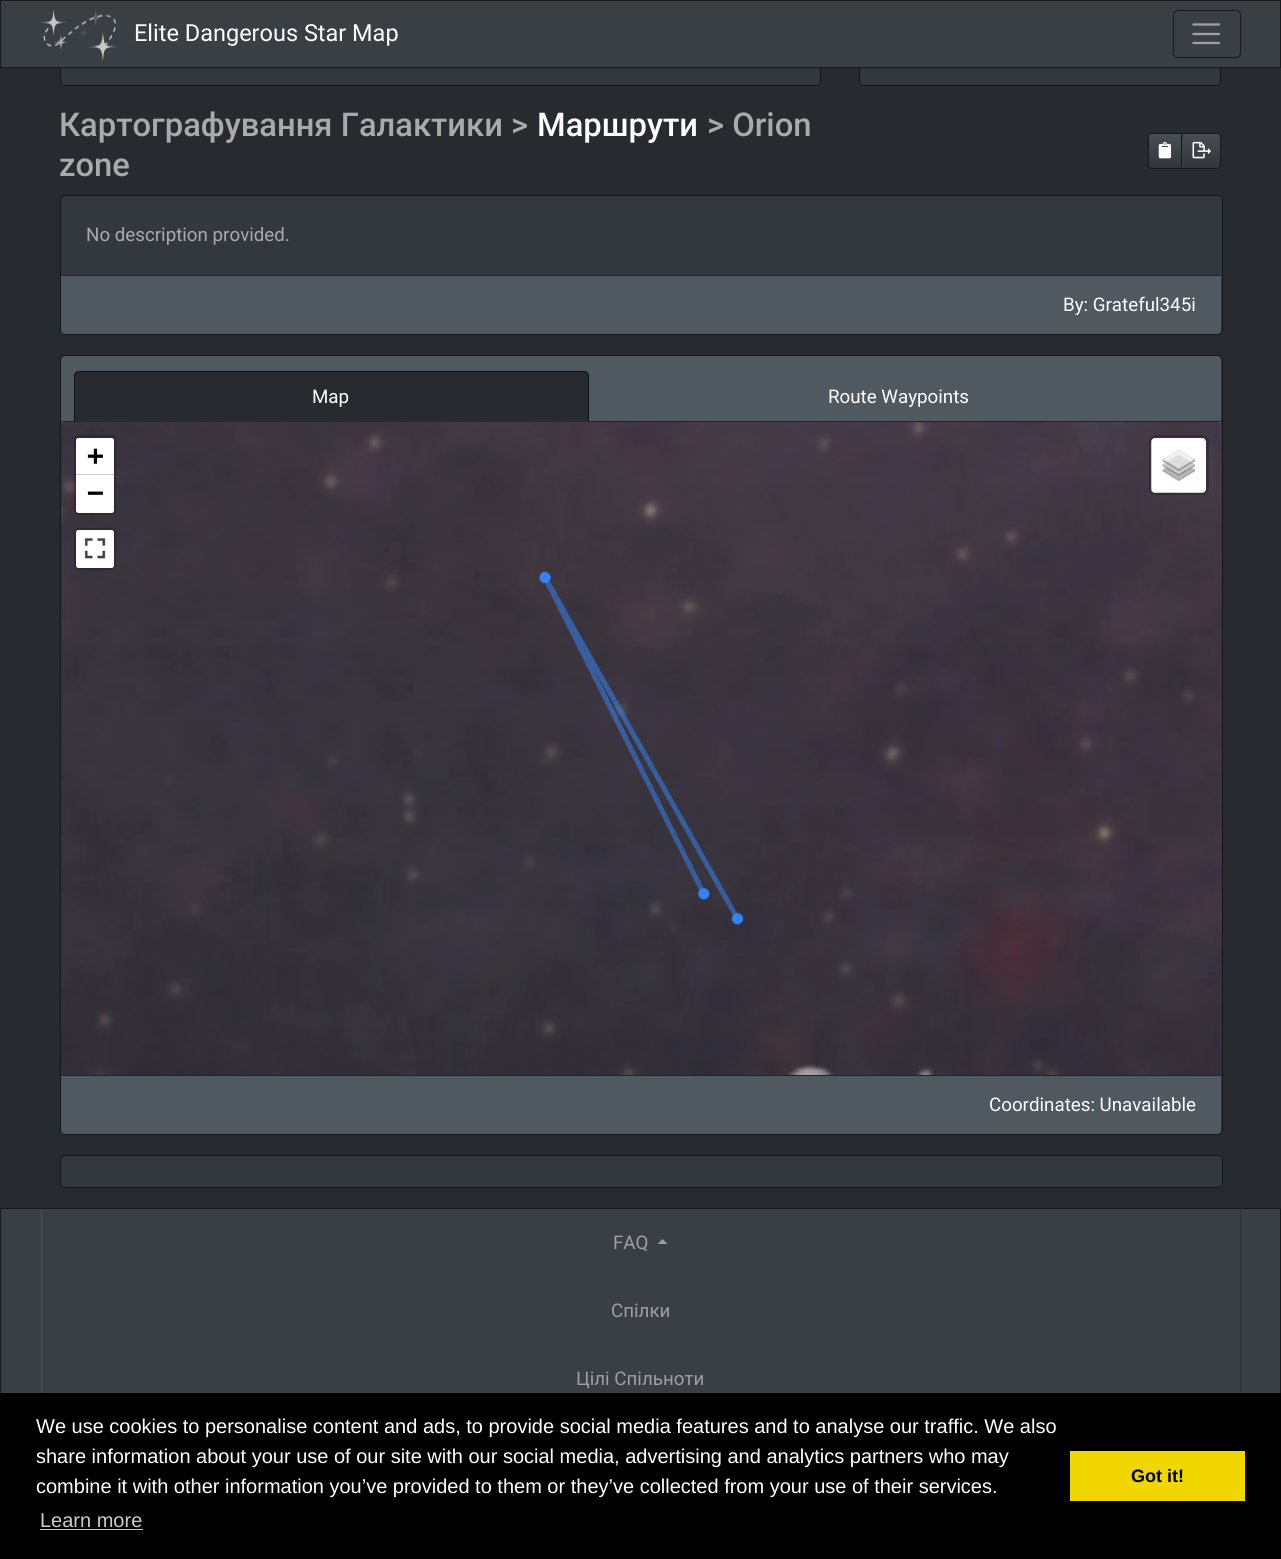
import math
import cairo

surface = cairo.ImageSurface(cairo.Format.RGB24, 1281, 1559)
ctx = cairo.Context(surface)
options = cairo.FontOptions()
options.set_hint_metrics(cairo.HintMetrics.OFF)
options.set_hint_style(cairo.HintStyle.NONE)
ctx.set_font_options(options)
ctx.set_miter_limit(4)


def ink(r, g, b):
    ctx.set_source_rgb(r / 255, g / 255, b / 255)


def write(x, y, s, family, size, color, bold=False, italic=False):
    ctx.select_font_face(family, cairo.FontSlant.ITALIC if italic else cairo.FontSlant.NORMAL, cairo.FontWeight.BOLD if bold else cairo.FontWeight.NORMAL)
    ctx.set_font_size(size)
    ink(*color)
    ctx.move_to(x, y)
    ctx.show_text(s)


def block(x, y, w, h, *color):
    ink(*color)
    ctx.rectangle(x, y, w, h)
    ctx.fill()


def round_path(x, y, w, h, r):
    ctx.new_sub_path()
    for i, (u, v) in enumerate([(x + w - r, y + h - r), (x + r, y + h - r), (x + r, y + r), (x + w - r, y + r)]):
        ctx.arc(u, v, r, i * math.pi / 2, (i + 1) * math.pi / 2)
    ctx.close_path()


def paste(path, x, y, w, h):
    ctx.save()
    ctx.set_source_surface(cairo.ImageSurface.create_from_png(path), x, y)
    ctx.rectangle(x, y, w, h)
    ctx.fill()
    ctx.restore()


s1 = dict(family="Roboto", size=23.5, color=(255, 255, 255))
s2 = dict(family="Roboto Medium", size=32.75, color=(170, 170, 170))
s3 = dict(family="Roboto Medium", size=32.75, color=(255, 255, 255))
s4 = dict(family="Roboto", size=18.75, color=(170, 170, 170))
s5 = dict(family="Roboto", size=18.75, color=(255, 255, 255))
s6 = dict(family="DejaVu Sans Mono", size=28, color=(0, 0, 0), bold=True)
s7 = dict(family="Roboto", size=18.75, color=(157, 159, 162))
s8 = dict(family="Liberation Sans", size=20, color=(255, 255, 255))
s9 = dict(family="Liberation Sans", size=20, color=(204, 204, 204))
s10 = dict(family="Liberation Sans", size=18, color=(0, 0, 0), bold=True)

ink(39, 43, 48)
ctx.paint()
ink(50, 56, 62)
round_path(60, 54, 761, 32, 5)
ctx.fill()
round_path(60.5, 54.5, 760, 31, 4.5)
ctx.set_source_rgba(0, 0, 0, 0.6)
ctx.set_line_width(1)
ctx.stroke()
ink(50, 56, 62)
round_path(859, 54, 362, 32, 5)
ctx.fill()
round_path(859.5, 54.5, 361, 31, 4.5)
ctx.set_source_rgba(0, 0, 0, 0.6)
ctx.stroke()
ink(58, 63, 68)
ctx.rectangle(0.5, 0.5, 1280, 67)
ctx.fill_preserve()
ink(23, 25, 27)
ctx.stroke()
paste("pic1.png", 41, 9, 75, 52)
write(134, 41, "Elite Dangerous Star Map", **s1)
round_path(1173.5, 10.5, 67, 47, 4.5)
ink(23, 25, 27)
ctx.stroke()
ctx.new_path()
ctx.move_to(1193.5, 24.5)
ctx.line_to(1219, 24.5)
ctx.move_to(1193.5, 34)
ctx.line_to(1219, 34)
ctx.move_to(1193.5, 43)
ctx.line_to(1219, 43)
ink(157, 159, 162)
ctx.set_line_width(2.3)
ctx.set_line_cap(cairo.LineCap.ROUND)
ctx.stroke()
write(59, 136, "Картографування Галактики >", **s2)
write(537, 136, "Маршрути", **s3)
write(707, 136, "> Orion", **s2)
write(59, 176, "zone", **s2)
ink(58, 63, 68)
ctx.new_path()
ctx.move_to(1152, 133)
ctx.line_to(1183, 133)
ctx.line_to(1183, 169)
ctx.line_to(1152, 169)
ctx.curve_to(1150, 169, 1148, 167, 1148, 165)
ctx.line_to(1148, 137)
ctx.curve_to(1148, 135, 1150, 133, 1152, 133)
ctx.close_path()
ctx.fill()
gradient = cairo.LinearGradient(1165, 134, 1165, 168)
gradient.add_color_stop_rgba(0, 0.282, 0.306, 0.333, 1)
gradient.add_color_stop_rgba(0.6, 0.227, 0.247, 0.267, 1)
gradient.add_color_stop_rgba(1, 0.192, 0.208, 0.224, 1)
ctx.set_source(gradient)
ctx.rectangle(1149, 134, 32, 34)
ctx.fill()
ctx.new_path()
ctx.move_to(1152, 133.5)
ctx.line_to(1182.5, 133.5)
ctx.line_to(1182.5, 168.5)
ctx.line_to(1152, 168.5)
ctx.curve_to(1150, 168.5, 1148.5, 167, 1148.5, 165)
ctx.line_to(1148.5, 137)
ctx.curve_to(1148.5, 135, 1150, 133.5, 1152, 133.5)
ctx.close_path()
ctx.set_source_rgba(0, 0, 0, 0.6)
ctx.set_line_width(1)
ctx.set_line_cap(cairo.LineCap.BUTT)
ctx.stroke()
paste("pic2.png", 1158, 141, 14, 18)
ink(58, 63, 68)
ctx.new_path()
ctx.move_to(1181, 133)
ctx.line_to(1217, 133)
ctx.curve_to(1219, 133, 1221, 135, 1221, 137)
ctx.line_to(1221, 165)
ctx.curve_to(1221, 167, 1219, 169, 1217, 169)
ctx.line_to(1181, 169)
ctx.close_path()
ctx.fill()
gradient = cairo.LinearGradient(1201, 134, 1201, 168)
gradient.add_color_stop_rgba(0, 0.282, 0.306, 0.333, 1)
gradient.add_color_stop_rgba(0.6, 0.227, 0.247, 0.267, 1)
gradient.add_color_stop_rgba(1, 0.192, 0.208, 0.224, 1)
ctx.set_source(gradient)
ctx.rectangle(1183, 134, 37, 34)
ctx.fill()
ctx.new_path()
ctx.move_to(1181.5, 133.5)
ctx.line_to(1217, 133.5)
ctx.curve_to(1219, 133.5, 1220.5, 135, 1220.5, 137)
ctx.line_to(1220.5, 165)
ctx.curve_to(1220.5, 167, 1219, 168.5, 1217, 168.5)
ctx.line_to(1181.5, 168.5)
ctx.close_path()
ctx.set_source_rgba(0, 0, 0, 0.6)
ctx.stroke()
paste("pic3.png", 1192, 141, 19, 18)
ink(50, 56, 62)
round_path(60, 195, 1163, 140, 5)
ctx.fill()
round_path(60.5, 195.5, 1162, 139, 4.5)
ctx.set_source_rgba(0, 0, 0, 0.6)
ctx.stroke()
write(86, 241, "No description provided.", **s4)
ink(81, 89, 96)
ctx.new_path()
ctx.move_to(61, 275)
ctx.line_to(1221, 275)
ctx.line_to(1221, 330)
ctx.curve_to(1221, 332, 1219, 334, 1217, 334)
ctx.line_to(65, 334)
ctx.curve_to(63, 334, 61, 332, 61, 330)
ctx.close_path()
ctx.fill()
block(61, 275, 1160, 1, 32, 36, 38)
write(1063, 311, "By: Grateful345i", **s5)
ink(50, 56, 62)
round_path(60, 355, 1163, 780, 5)
ctx.fill()
round_path(60.5, 355.5, 1162, 779, 4.5)
ctx.set_source_rgba(0, 0, 0, 0.6)
ctx.stroke()
ink(81, 89, 96)
ctx.new_path()
ctx.move_to(65, 356)
ctx.line_to(1217, 356)
ctx.curve_to(1219, 356, 1221, 358, 1221, 360)
ctx.line_to(1221, 423)
ctx.line_to(61, 423)
ctx.line_to(61, 360)
ctx.curve_to(61, 358, 63, 356, 65, 356)
ctx.close_path()
ctx.fill()
block(61, 421, 1160, 1, 32, 36, 38)
ink(39, 43, 48)
ctx.new_path()
ctx.move_to(79, 371)
ctx.line_to(584, 371)
ctx.curve_to(587, 371, 589, 373, 589, 376)
ctx.line_to(589, 423)
ctx.line_to(74, 423)
ctx.line_to(74, 376)
ctx.curve_to(74, 373, 76, 371, 79, 371)
ctx.close_path()
ctx.fill()
ctx.new_path()
ctx.move_to(79, 371.5)
ctx.line_to(584, 371.5)
ctx.curve_to(586.5, 371.5, 588.5, 373.5, 588.5, 376)
ctx.line_to(588.5, 422.5)
ctx.line_to(74.5, 422.5)
ctx.line_to(74.5, 376)
ctx.curve_to(74.5, 373.5, 76.5, 371.5, 79, 371.5)
ctx.close_path()
ctx.set_source_rgba(0, 0, 0, 0.6)
ctx.stroke()
write(312, 403, "Map", **s5)
write(828, 403, "Route Waypoints", **s5)
paste("pic4.png", 61, 422, 384, 355)
paste("pic5.png", 445, 422, 640, 355)
paste("pic6.png", 1085, 422, 137, 355)
paste("pic7.png", 61, 777, 384, 298)
paste("pic8.png", 445, 777, 640, 298)
paste("pic9.png", 1085, 777, 137, 298)
paste("pic10.png", 787, 1064, 147, 11)
paste("pic11.png", 539, 571, 205, 354)
round_path(75.5, 436.5, 39, 77, 3.5)
ctx.set_source_rgba(0, 0, 0, 0.2)
ctx.set_line_width(3)
ctx.stroke()
ink(255, 255, 255)
ctx.new_path()
ctx.move_to(78.5, 438)
ctx.line_to(111.5, 438)
ctx.curve_to(113, 438, 114, 439, 114, 440.5)
ctx.line_to(114, 475)
ctx.line_to(76, 475)
ctx.line_to(76, 440.5)
ctx.curve_to(76, 439, 77, 438, 78.5, 438)
ctx.close_path()
ctx.fill()
block(76, 474, 38, 1, 204, 204, 204)
write(87, 465, "+", **s6)
ink(255, 255, 255)
ctx.new_path()
ctx.move_to(76, 475)
ctx.line_to(114, 475)
ctx.line_to(114, 510.5)
ctx.curve_to(114, 512, 113, 513, 111.5, 513)
ctx.line_to(78.5, 513)
ctx.curve_to(77, 513, 76, 512, 76, 510.5)
ctx.close_path()
ctx.fill()
write(87, 502, "−", **s6)
round_path(75.5, 529.5, 39, 39, 3.5)
ctx.set_source_rgba(0, 0, 0, 0.2)
ctx.stroke()
ink(255, 255, 255)
round_path(76, 530, 38, 38, 2.5)
ctx.fill()
paste("pic12.png", 84, 538, 22, 21)
round_path(1151, 438, 55, 55, 4)
ctx.fill()
round_path(1150.5, 436.5, 57, 57, 4.5)
ctx.set_source_rgba(0, 0, 0, 0.2)
ctx.stroke()
paste("pic13.png", 1162, 449, 33, 32)
ink(81, 89, 96)
ctx.new_path()
ctx.move_to(61, 1075)
ctx.line_to(1221, 1075)
ctx.line_to(1221, 1130)
ctx.curve_to(1221, 1132, 1219, 1134, 1217, 1134)
ctx.line_to(65, 1134)
ctx.curve_to(63, 1134, 61, 1132, 61, 1130)
ctx.close_path()
ctx.fill()
block(61, 1075, 1160, 1, 32, 36, 38)
write(989, 1111, "Coordinates: Unavailable", **s5)
ink(50, 56, 62)
round_path(60, 1155, 1163, 33, 5)
ctx.fill()
round_path(60.5, 1155.5, 1162, 32, 4.5)
ctx.set_source_rgba(0, 0, 0, 0.6)
ctx.set_line_width(1)
ctx.stroke()
block(0, 1208, 1281, 185, 58, 63, 68)
ink(23, 25, 27)
ctx.new_path()
ctx.move_to(0, 1208)
ctx.line_to(1281, 1208)
ctx.line_to(1280, 1209)
ctx.line_to(1, 1209)
ctx.close_path()
ctx.fill()
ctx.set_source_rgba(0, 0, 0, 0.6)
ctx.new_path()
ctx.move_to(1281, 1208)
ctx.line_to(1281, 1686)
ctx.line_to(1280, 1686)
ctx.line_to(1280, 1209)
ctx.close_path()
ctx.fill()
ctx.new_path()
ctx.move_to(0, 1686)
ctx.line_to(0, 1208)
ctx.line_to(1, 1209)
ctx.line_to(1, 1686)
ctx.close_path()
ctx.fill()
write(613, 1249, "FAQ", **s7)
ctx.new_path()
ctx.move_to(667.5, 1244)
ctx.line_to(657.5, 1244)
ctx.line_to(662.5, 1239)
ctx.close_path()
ctx.fill()
block(1240, 1209, 1, 184, 46, 50, 54)
block(41, 1209, 1, 184, 78, 82, 87)
write(611, 1317, "Спілки", **s7)
write(576, 1385, "Цілі Спільноти", **s7)
block(0, 1393, 1281, 166, 0, 0, 0)
write(36, 1433, "We use cookies to personalise content and ads, to provide social media features and to analyse our traffic. We also", **s8)
write(36, 1463, "share information about your use of our site with our social media, advertising and analytics partners who may", **s8)
write(36, 1493, "combine it with other information you’ve provided to them or they’ve collected from your use of their services.", **s8)
write(40, 1527, "Learn more", **s9)
block(40, 1529, 103, 1, 204, 204, 204)
block(1070, 1451, 175, 50, 241, 214, 0)
write(1131, 1482, "Got it!", **s10)
surface.write_to_png("screenshot.png")
